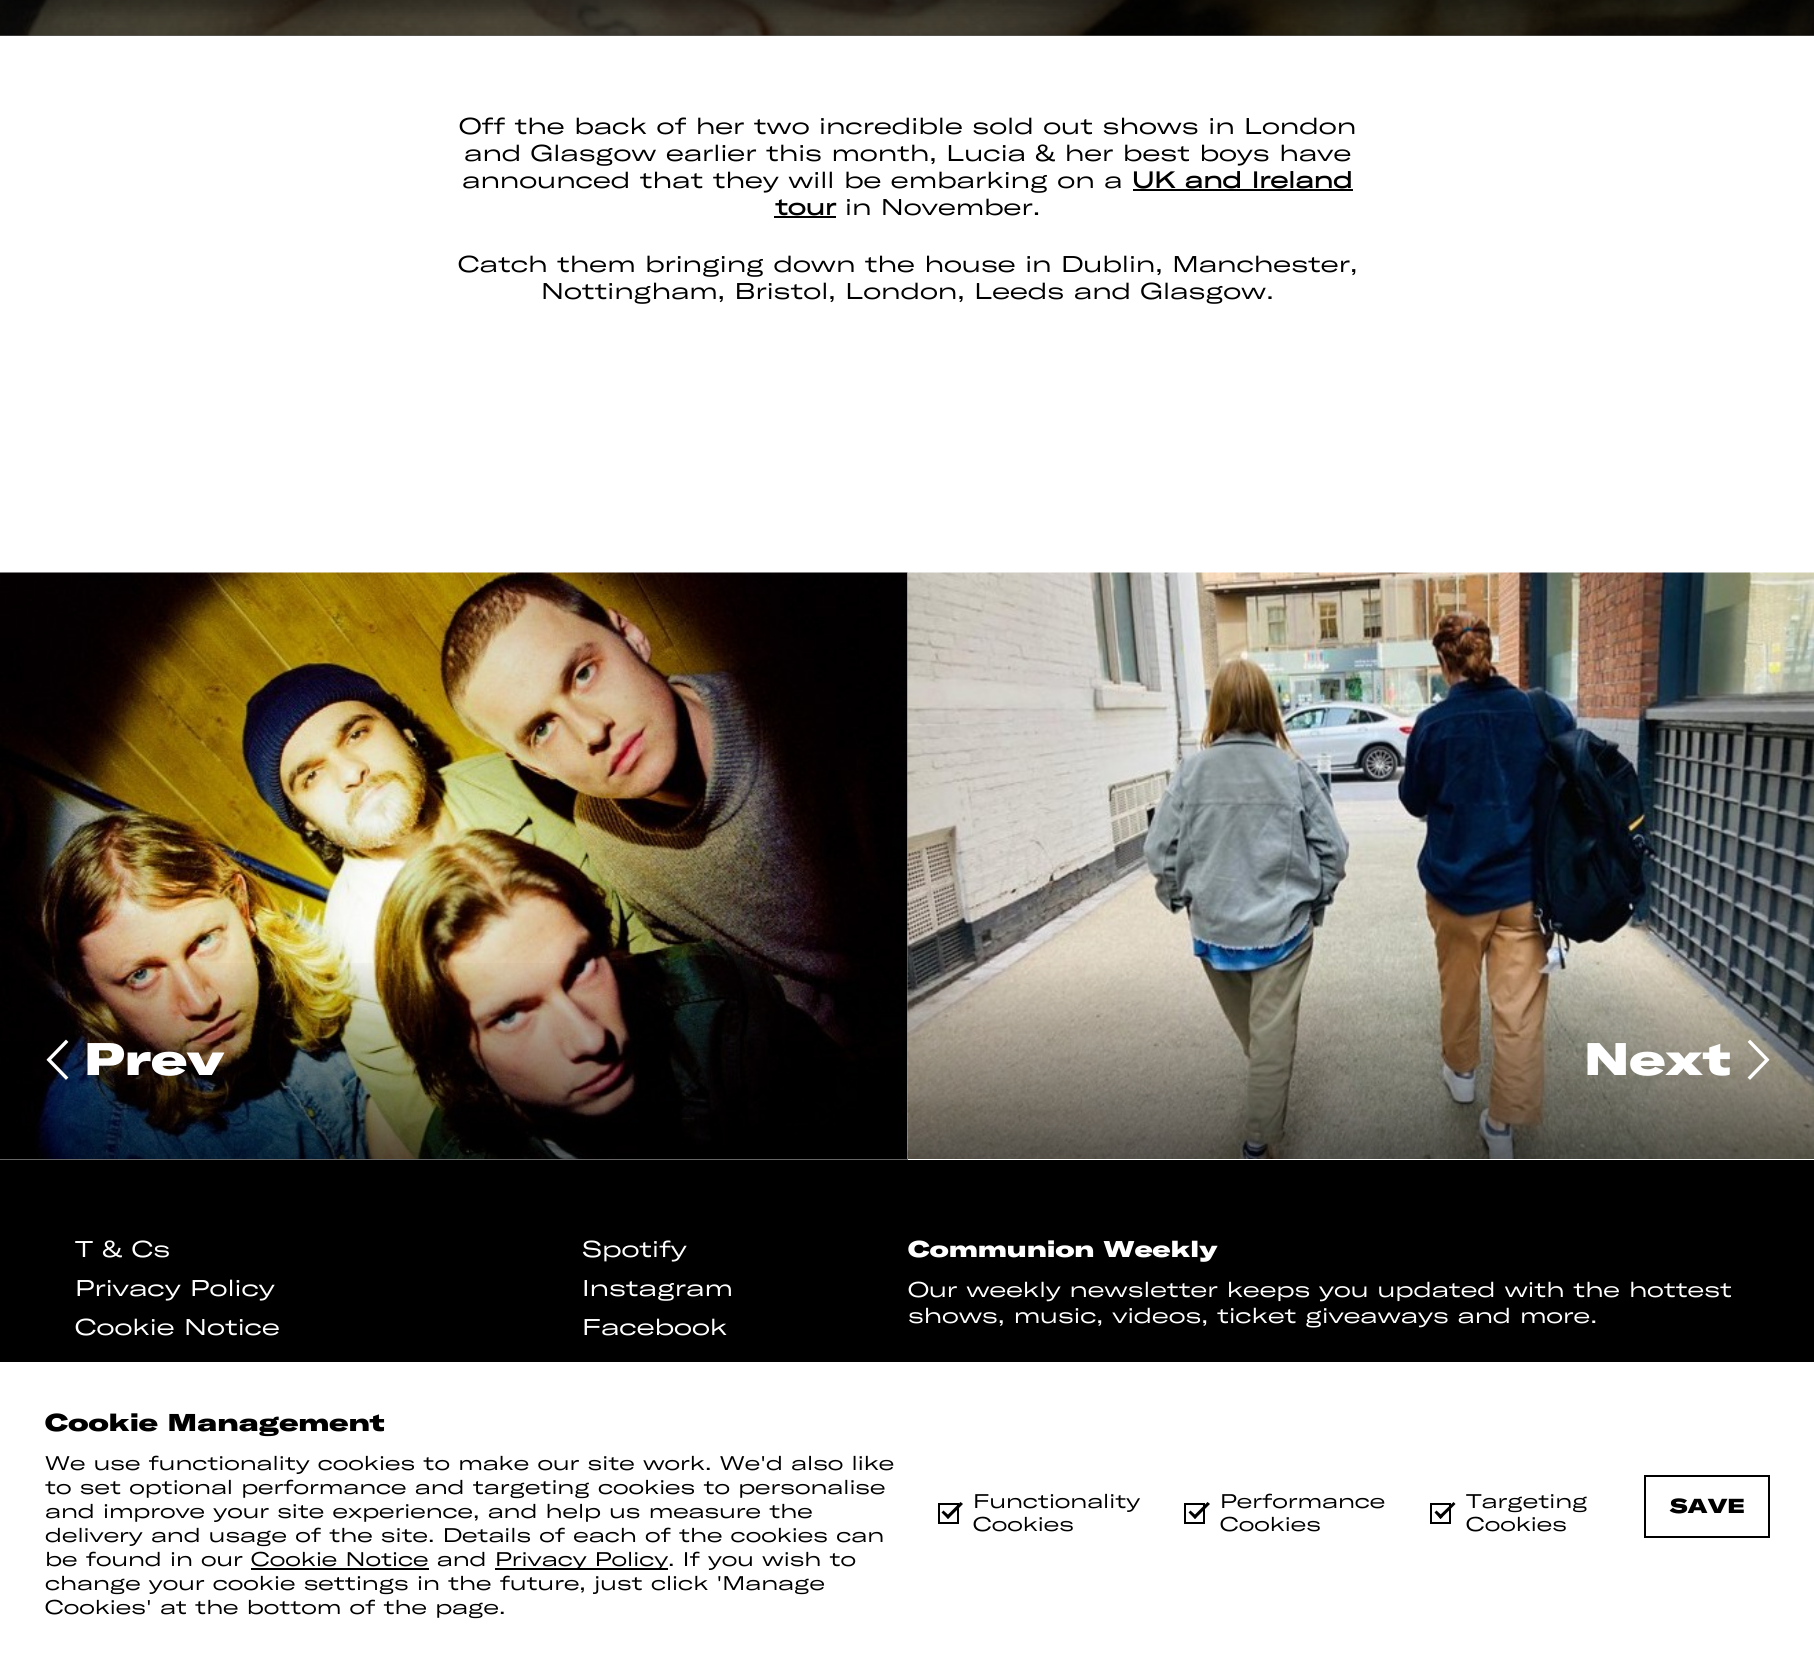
import math
import cairo

surface = cairo.ImageSurface(cairo.Format.RGB24, 1814, 1663)
ctx = cairo.Context(surface)
options = cairo.FontOptions()
options.set_hint_metrics(cairo.HintMetrics.OFF)
options.set_hint_style(cairo.HintStyle.NONE)
ctx.set_font_options(options)
ctx.set_miter_limit(4)


def ink(r, g, b):
    ctx.set_source_rgb(r / 255, g / 255, b / 255)


def write(x, y, s, family, size, color, bold=False, italic=False):
    ctx.select_font_face(family, cairo.FontSlant.ITALIC if italic else cairo.FontSlant.NORMAL, cairo.FontWeight.BOLD if bold else cairo.FontWeight.NORMAL)
    ctx.set_font_size(size)
    ink(*color)
    ctx.move_to(x, y)
    ctx.show_text(s)


def block(x, y, w, h, *color):
    ink(*color)
    ctx.rectangle(x, y, w, h)
    ctx.fill()


def round_path(x, y, w, h, r):
    ctx.new_sub_path()
    for i, (u, v) in enumerate([(x + w - r, y + h - r), (x + r, y + h - r), (x + r, y + r), (x + w - r, y + r)]):
        ctx.arc(u, v, r, i * math.pi / 2, (i + 1) * math.pi / 2)
    ctx.close_path()


def blur_box(x, y, w, h, r, blur, alpha):
    ctx.push_group_with_content(cairo.Content.ALPHA)
    ctx.set_operator(cairo.Operator.SOURCE)
    for i in range(15, -16, -2):
        e = blur * i / 6
        if min(w, h) + 2 * e > 0:
            ctx.set_source_rgba(0, 0, 0, alpha * math.erfc((i - 1) / 8.5) / 2)
            round_path(x - e, y - e, w + 2 * e, h + 2 * e, max(0, min(r + e + blur * .6, min(w, h) / 2 + e)))
            ctx.fill()
    ctx.mask(ctx.pop_group())


def paste(path, x, y, w, h):
    ctx.save()
    ctx.set_source_surface(cairo.ImageSurface.create_from_png(path), x, y)
    ctx.rectangle(x, y, w, h)
    ctx.fill()
    ctx.restore()


s1 = dict(family="GT America", size=22.5, color=(0, 0, 0))
s2 = dict(family="GT America", size=22.5, color=(0, 0, 0), bold=True)
s3 = dict(family="GT America Black", size=45, color=(255, 255, 255))
s4 = dict(family="GT America", size=22.5, color=(255, 255, 255))
s5 = dict(family="GT America Black", size=22.5, color=(255, 255, 255))
s6 = dict(family="GT America", size=21, color=(255, 255, 255))
s7 = dict(family="GT America Black", size=24, color=(0, 0, 0))
s8 = dict(family="GT America", size=19.5, color=(0, 0, 0))
s9 = dict(family="GT America Black", size=20, color=(0, 0, 0))

ink(255, 255, 255)
ctx.paint()
paste("pic1.png", 0, 0, 1814, 36)
gradient = cairo.LinearGradient(908, -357, 908, 36)
gradient.add_color_stop_rgba(0, 0, 0, 0, 0)
gradient.add_color_stop_rgba(1, 0, 0, 0, 0.6)
ctx.set_source(gradient)
ctx.rectangle(0, 0, 1814, 36)
ctx.fill()
ink(0, 0, 0)
blur_box(5, -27, 1806, 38, 0, 9, 0.4)
write(459, 134, "Off the back of her two incredible sold out shows in London", **s1)
write(464, 161, "and Glasgow earlier this month, Lucia & her best boys have", **s1)
write(462, 188, "announced that they will be embarking on a", **s1)
write(1132, 188, "UK and Ireland", **s2)
block(1133, 189, 220, 2, 0, 0, 0)
write(775, 215, "tour", **s2)
block(774, 216, 62, 2, 0, 0, 0)
write(845, 215, "in November.", **s1)
write(458, 272, "Catch them bringing down the house in Dublin, Manchester,", **s1)
write(541, 299, "Nottingham, Bristol, London, Leeds and Glasgow.", **s1)
paste("pic2.png", 0, 572, 908, 587)
gradient = cairo.LinearGradient(454, 956, 454, 1160)
gradient.add_color_stop_rgba(0, 0, 0, 0, 0)
gradient.add_color_stop_rgba(1, 0, 0, 0, 0.6)
ctx.set_source(gradient)
ctx.rectangle(0, 963, 908, 197)
ctx.fill()
ctx.new_path()
ctx.move_to(49, 1060)
ctx.line_to(66, 1077.5)
ctx.move_to(49, 1059.5)
ctx.line_to(66, 1042)
ink(255, 255, 255)
ctx.set_line_width(3.4)
ctx.set_line_cap(cairo.LineCap.SQUARE)
ctx.stroke()
write(84, 1075, "Prev", **s3)
paste("pic3.png", 907, 572, 907, 587)
write(1584, 1075, "Next", **s3)
ctx.new_path()
ctx.move_to(1767, 1060)
ctx.line_to(1750, 1077.5)
ctx.move_to(1767, 1059.5)
ctx.line_to(1750, 1042)
ctx.stroke()
block(0, 1160, 1814, 202, 0, 0, 0)
write(75, 1257, "T & Cs", **s4)
write(75, 1296, "Privacy Policy", **s4)
write(75, 1335, "Cookie Notice", **s4)
write(582, 1257, "Spotify", **s4)
write(582, 1296, "Instagram", **s4)
write(582, 1335, "Facebook", **s4)
write(908, 1257, "Communion Weekly", **s5)
write(908, 1297, "Our weekly newsletter keeps you updated with the hottest", **s6)
write(908, 1323, "shows, music, videos, ticket giveaways and more.", **s6)
write(45, 1431, "Cookie Management", **s7)
write(45, 1470, "We use functionality cookies to make our site work. We'd also like", **s8)
write(45, 1494, "to set optional performance and targeting cookies to personalise", **s8)
write(45, 1518, "and improve your site experience, and help us measure the", **s8)
write(45, 1542, "delivery and usage of the site. Details of each of the cookies can", **s8)
write(45, 1566, "be found in our Cookie Notice and", **s8)
block(495, 1568, 173, 2, 0, 0, 0)
write(495, 1566, "Privacy Policy. If you wish to", **s8)
block(251, 1568, 178, 2, 0, 0, 0)
write(45, 1590, "change your cookie settings in the future, just click 'Manage", **s8)
write(45, 1614, "Cookies' at the bottom of the page.", **s8)
ctx.rectangle(939, 1504, 19, 19)
ctx.set_line_width(2)
ctx.set_line_cap(cairo.LineCap.BUTT)
ctx.stroke()
ctx.new_path()
ctx.move_to(960.5, 1502)
ctx.line_to(963, 1504)
ctx.line_to(948, 1519)
ctx.line_to(946, 1516.5)
ctx.close_path()
ctx.fill()
ctx.new_path()
ctx.move_to(943.5, 1510.5)
ctx.line_to(950, 1516.5)
ctx.line_to(948, 1519)
ctx.line_to(941.5, 1512.5)
ctx.close_path()
ctx.fill()
write(973, 1508, "Functionality", **s8)
write(973, 1531, "Cookies", **s8)
ctx.rectangle(1185, 1504, 19, 19)
ctx.stroke()
ctx.new_path()
ctx.move_to(1207.5, 1502)
ctx.line_to(1210, 1504)
ctx.line_to(1195, 1519)
ctx.line_to(1193, 1516.5)
ctx.close_path()
ctx.fill()
ctx.new_path()
ctx.move_to(1190.5, 1510.5)
ctx.line_to(1197, 1516.5)
ctx.line_to(1195, 1519)
ctx.line_to(1188.5, 1512.5)
ctx.close_path()
ctx.fill()
write(1220, 1508, "Performance", **s8)
write(1220, 1531, "Cookies", **s8)
ctx.rectangle(1431, 1504, 19, 19)
ctx.stroke()
ctx.new_path()
ctx.move_to(1453.5, 1502)
ctx.line_to(1455.5, 1504)
ctx.line_to(1440.5, 1519)
ctx.line_to(1438.5, 1516.5)
ctx.close_path()
ctx.fill()
ctx.new_path()
ctx.move_to(1436.5, 1510.5)
ctx.line_to(1443, 1516.5)
ctx.line_to(1440.5, 1519)
ctx.line_to(1434.5, 1512.5)
ctx.close_path()
ctx.fill()
write(1466, 1508, "Targeting", **s8)
write(1466, 1531, "Cookies", **s8)
ctx.rectangle(1645, 1476, 124, 61)
ctx.stroke()
write(1670, 1513, "SAVE", **s9)
surface.write_to_png("screenshot.png")
